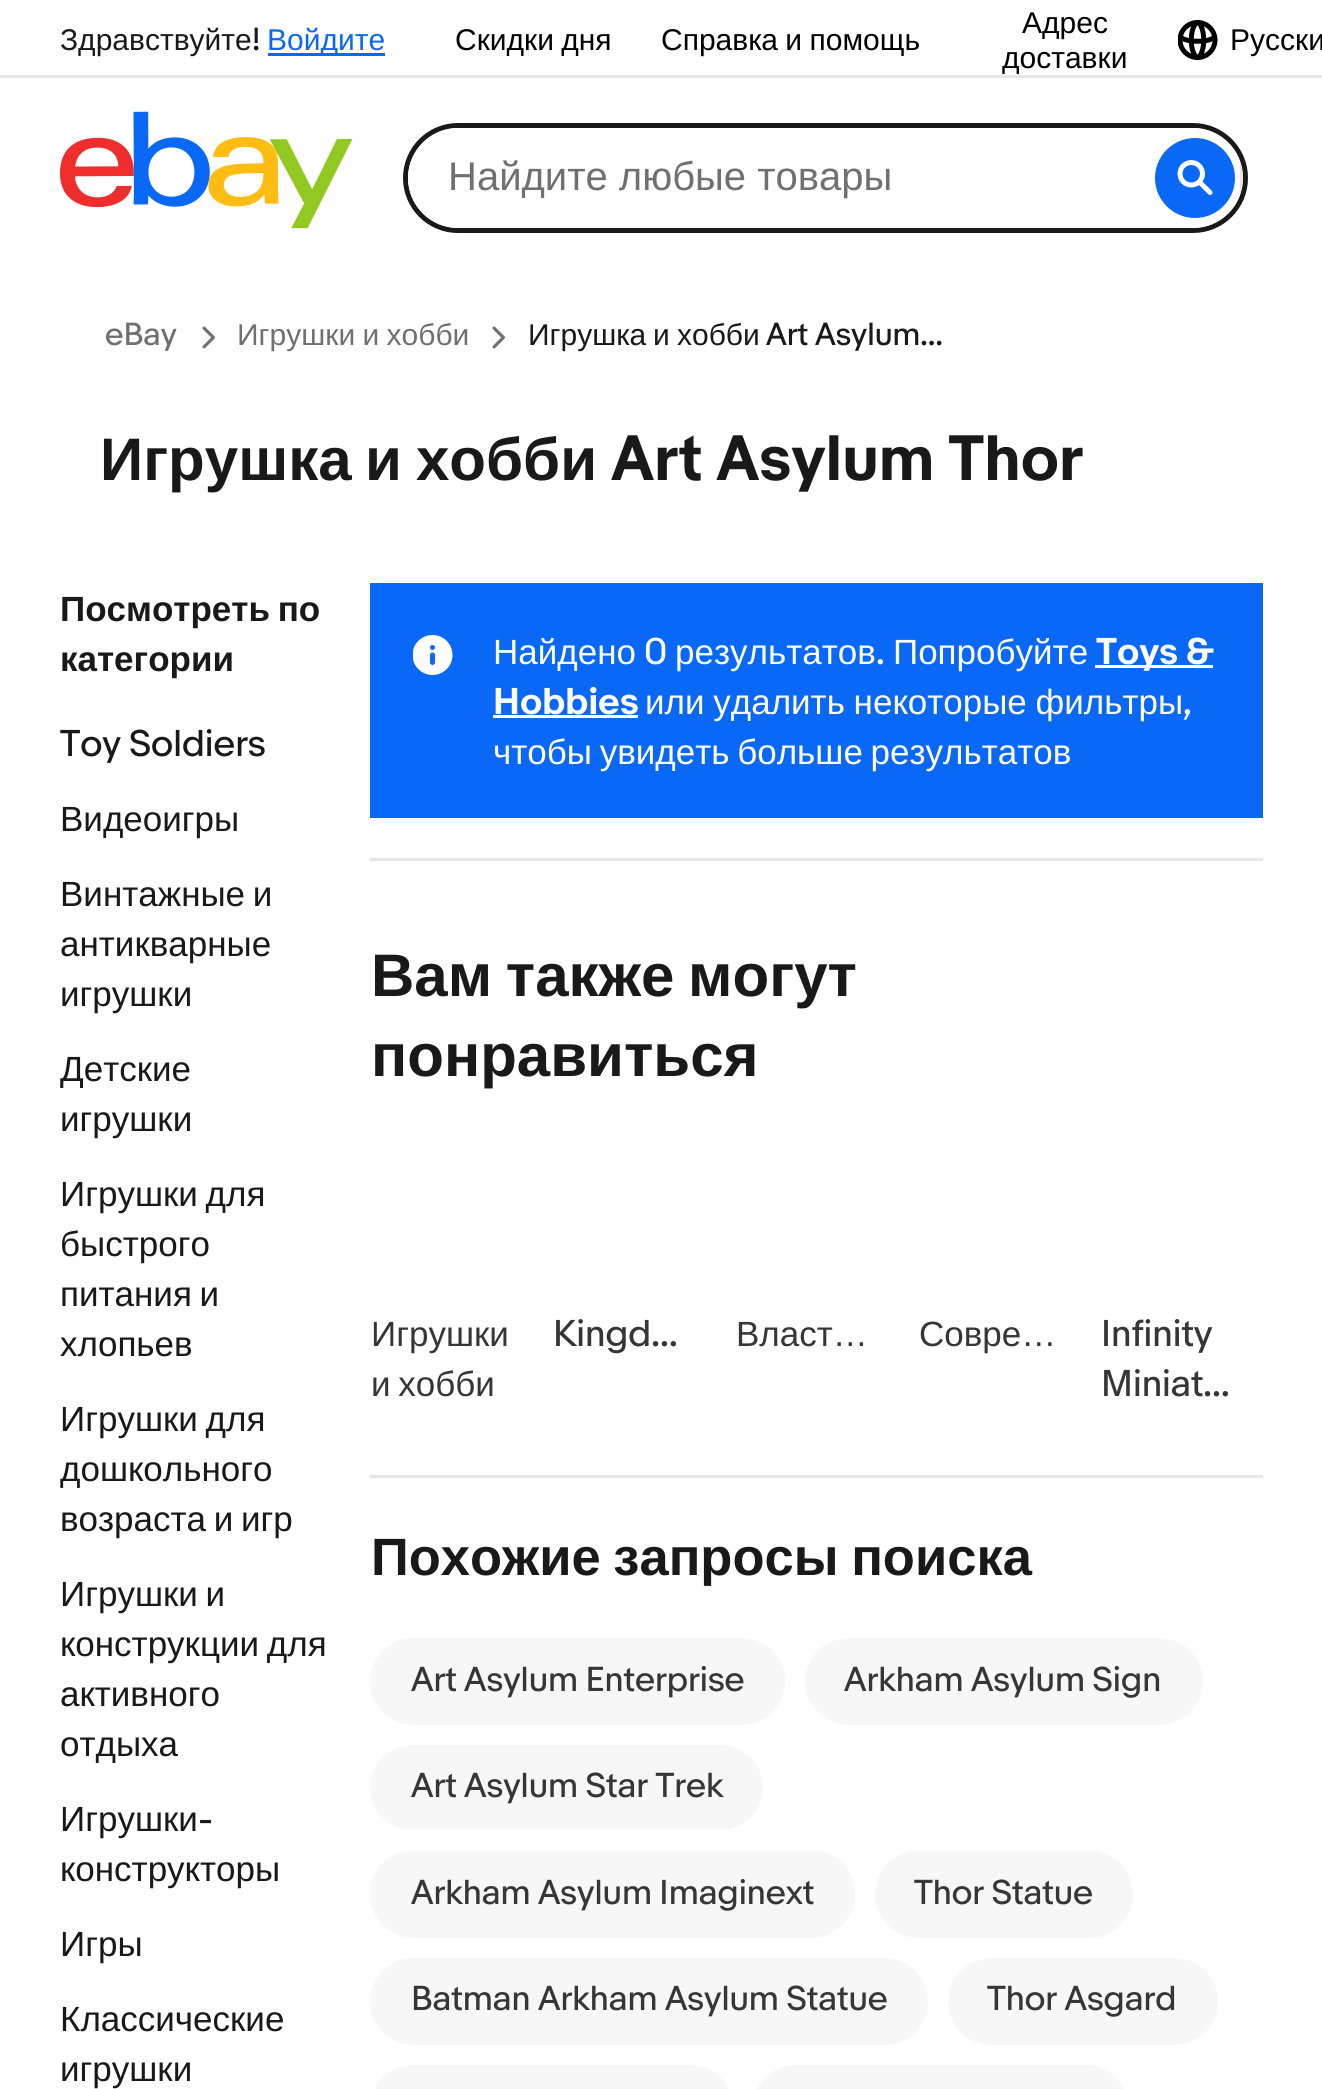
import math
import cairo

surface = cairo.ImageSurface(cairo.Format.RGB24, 1322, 2089)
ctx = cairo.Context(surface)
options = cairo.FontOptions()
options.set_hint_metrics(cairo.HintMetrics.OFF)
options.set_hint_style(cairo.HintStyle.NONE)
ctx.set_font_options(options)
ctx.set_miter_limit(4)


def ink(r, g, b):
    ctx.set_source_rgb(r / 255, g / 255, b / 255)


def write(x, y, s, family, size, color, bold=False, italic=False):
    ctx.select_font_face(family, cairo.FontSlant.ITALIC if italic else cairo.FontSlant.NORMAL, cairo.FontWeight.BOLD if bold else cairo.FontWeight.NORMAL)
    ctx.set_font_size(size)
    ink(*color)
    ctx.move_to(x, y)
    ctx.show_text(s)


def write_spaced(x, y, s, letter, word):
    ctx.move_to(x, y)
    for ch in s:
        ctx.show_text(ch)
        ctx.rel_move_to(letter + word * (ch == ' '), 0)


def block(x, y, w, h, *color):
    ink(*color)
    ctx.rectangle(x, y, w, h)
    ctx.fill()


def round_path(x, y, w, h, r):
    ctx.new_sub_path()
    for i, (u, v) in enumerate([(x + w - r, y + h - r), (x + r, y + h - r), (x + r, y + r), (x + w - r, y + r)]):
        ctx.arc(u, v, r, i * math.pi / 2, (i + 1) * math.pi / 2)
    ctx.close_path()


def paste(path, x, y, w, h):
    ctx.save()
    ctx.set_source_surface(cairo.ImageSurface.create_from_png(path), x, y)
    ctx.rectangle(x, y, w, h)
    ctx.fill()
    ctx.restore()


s1 = dict(family="Liberation Sans", size=30, color=(25, 25, 25))
s2 = dict(family="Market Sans", size=30, color=(25, 25, 25))
s3 = dict(family="Liberation Sans", size=30, color=(9, 104, 246))
s4 = dict(family="Liberation Sans", size=30, color=(0, 0, 0))
s5 = dict(family="Liberation Sans", size=40, color=(112, 112, 112))
s6 = dict(family="Market Sans", size=30, color=(112, 112, 112))
s7 = dict(family="Liberation Sans", size=60, color=(25, 25, 25), bold=True)
s8 = dict(family="Market Sans", size=60, color=(25, 25, 25), bold=True)
s9 = dict(family="Liberation Sans", size=35, color=(25, 25, 25), bold=True)
s10 = dict(family="Market Sans", size=35, color=(25, 25, 25))
s11 = dict(family="Liberation Sans", size=35, color=(25, 25, 25))
s12 = dict(family="Liberation Sans", size=35, color=(255, 255, 255))
s13 = dict(family="Market Sans", size=35, color=(255, 255, 255))
s14 = dict(family="Market Sans", size=35, color=(255, 255, 255), bold=True)
s15 = dict(family="Liberation Sans", size=35, color=(54, 54, 54))
s16 = dict(family="Market Sans", size=35, color=(54, 54, 54))
s17 = dict(family="Market Sans", size=32.5, color=(54, 54, 54))

ink(255, 255, 255)
ctx.paint()
write(60, 50, "Здравствуйте", **s1)
write(252, 50, "!", **s2)
block(268, 53, 117, 3, 9, 104, 246)
write(267, 50, "Войдите", **s3)
ink(0, 0, 0)
write_spaced(455, 50, "Скидки дня", 0, -1)
write_spaced(661, 50, "Справка и помощь", 0, -1)
write(1022, 33, "Адрес", **s4)
write(1002, 68, "доставки", **s4)
paste("pic1.png", 1178, 20, 40, 40)
write(1230, 50, "Русски", **s4)
paste("pic2.png", 60, 111, 293, 118)
round_path(405.5, 125.5, 840, 105, 52.5)
ink(25, 25, 25)
ctx.set_line_width(5)
ctx.stroke()
ctx.save()
round_path(408, 128, 835, 100, 50)
ctx.clip()
block(1240, 161, 3, 34, 229, 229, 229)
ink(255, 255, 255)
ctx.new_path()
ctx.move_to(458, 128)
ctx.line_to(1240, 128)
ctx.line_to(1240, 228)
ctx.line_to(458, 228)
ctx.curve_to(430.5, 228, 408, 205.5, 408, 178)
ctx.curve_to(408, 150.5, 430.5, 128, 458, 128)
ctx.close_path()
ctx.fill()
ctx.restore()
write(448, 190, "Найдите любые товары", **s5)
ink(9, 104, 246)
ctx.new_path()
ctx.arc(1195, 178, 38.5, 0, 2 * math.pi)
ctx.fill_preserve()
ctx.set_line_width(3)
ctx.stroke()
paste("pic3.png", 1177, 160, 36, 35)
write(105, 345, "eBay", **s6)
paste("pic4.png", 202, 326, 13, 23)
ctx.select_font_face("Liberation Sans")
write_spaced(237, 345, "Игрушки и хобби", 0, -1)
paste("pic4.png", 492, 326, 13, 23)
write(528, 345, "Игрушка", **s1)
write(653, 345, "и", **s1)
write(677, 345, "хобби", **s1)
write(766, 345, "Art Asylum…", **s2)
write(100, 480, "Игрушка", **s7)
write(365, 480, "и", **s7)
write(416, 480, "хобби", **s7)
write(611, 480, "Art Asylum Thor", **s8)
ctx.select_font_face("Liberation Sans", cairo.FontSlant.NORMAL, cairo.FontWeight.BOLD)
ctx.set_font_size(35)
write_spaced(60, 621, "Посмотреть по", 0, -2)
write(60, 671, "категории", **s9)
write(60, 756, "Toy Soldiers", **s10)
write(60, 831, "Видеоигры", **s11)
write_spaced(60, 906, "Винтажные и", 0, -2)
write(60, 956, "антикварные", **s11)
write(60, 1006, "игрушки", **s11)
write(60, 1081, "Детские", **s11)
write(60, 1131, "игрушки", **s11)
write_spaced(60, 1206, "Игрушки для", 0, -2)
write(60, 1256, "быстрого", **s11)
write_spaced(60, 1306, "питания и", 0, -2)
write(60, 1356, "хлопьев", **s11)
write_spaced(60, 1431, "Игрушки для", 0, -2)
write(60, 1481, "дошкольного", **s11)
write_spaced(60, 1531, "возраста и игр", 0, -2)
write_spaced(60, 1606, "Игрушки и", 0, -2)
write_spaced(60, 1656, "конструкции для", 0, -2)
write(60, 1706, "активного", **s11)
write(60, 1756, "отдыха", **s11)
write(60, 1831, "Игрушки", **s11)
write(198, 1831, "-", **s10)
write(60, 1881, "конструкторы", **s11)
write(60, 1956, "Игры", **s11)
write(60, 2031, "Классические", **s11)
write(60, 2081, "игрушки", **s11)
block(370, 858, 893, 3, 229, 229, 229)
block(370, 583, 893, 235, 9, 104, 246)
paste("pic5.png", 413, 635, 40, 40)
write(493, 664, "Найдено", **s12)
write(644, 664, "0", **s13)
write(675, 664, "результатов", **s12)
write(876, 664, ".", **s13)
write(893, 664, "Попробуйте", **s12)
block(1095, 665, 118, 3, 255, 255, 255)
write(1096, 664, "Toys &", **s14)
write(493, 714, "Hobbies", **s14)
block(493, 715, 145, 3, 255, 255, 255)
ctx.select_font_face("Liberation Sans")
write_spaced(645, 714, "или удалить некоторые фильтры", 0, -1)
write(1183, 714, ",", **s13)
ctx.select_font_face("Liberation Sans")
write_spaced(493, 764, "чтобы увидеть больше результатов", 0, -2)
block(370, 1475, 893, 3, 229, 229, 229)
ctx.select_font_face("Liberation Sans", cairo.FontSlant.NORMAL, cairo.FontWeight.BOLD)
ctx.set_font_size(60)
ink(25, 25, 25)
write_spaced(371, 996, "Вам также могут", 0, -3)
write(371, 1076, "понравиться", **s7)
write(371, 1346, "Игрушки", **s15)
write_spaced(371, 1396, "и хобби", 0, -2)
write(553, 1346, "Kingd…", **s16)
write(736, 1346, "Власт…", **s15)
write(919, 1346, "Совре…", **s15)
write(1101, 1346, "Infinity", **s16)
write(1101, 1396, "Miniat…", **s16)
ctx.select_font_face("Liberation Sans", cairo.FontSlant.NORMAL, cairo.FontWeight.BOLD)
ctx.set_font_size(52.5)
ink(25, 25, 25)
write_spaced(371, 1575, "Похожие запросы поиска", 0, -2)
ink(247, 247, 247)
round_path(370, 1638, 415, 87, 43.5)
ctx.fill()
write(411, 1691, "Art Asylum Enterprise", **s17)
ink(247, 247, 247)
round_path(805, 1638, 398, 87, 43.5)
ctx.fill()
write(844, 1691, "Arkham Asylum Sign", **s17)
ink(247, 247, 247)
round_path(370, 1745, 393, 85, 42.5)
ctx.fill()
write(411, 1797, "Art Asylum Star Trek", **s17)
ink(247, 247, 247)
round_path(370, 1850, 485, 88, 44)
ctx.fill()
write(411, 1904, "Arkham Asylum Imaginext", **s17)
ink(247, 247, 247)
round_path(875, 1850, 258, 88, 44)
ctx.fill()
write(914, 1904, "Thor Statue", **s17)
ink(247, 247, 247)
round_path(370, 1958, 558, 87, 43.5)
ctx.fill()
write(411, 2010, "Batman Arkham Asylum Statue", **s17)
ink(247, 247, 247)
round_path(948, 1958, 270, 87, 43.5)
ctx.fill()
write(987, 2010, "Thor Asgard", **s17)
ink(247, 247, 247)
round_path(370, 2065, 363, 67, 42.5)
ctx.fill()
round_path(753, 2065, 375, 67, 42.5)
ctx.fill()
block(0, 75, 1322, 3, 229, 229, 229)
surface.write_to_png("screenshot.png")
